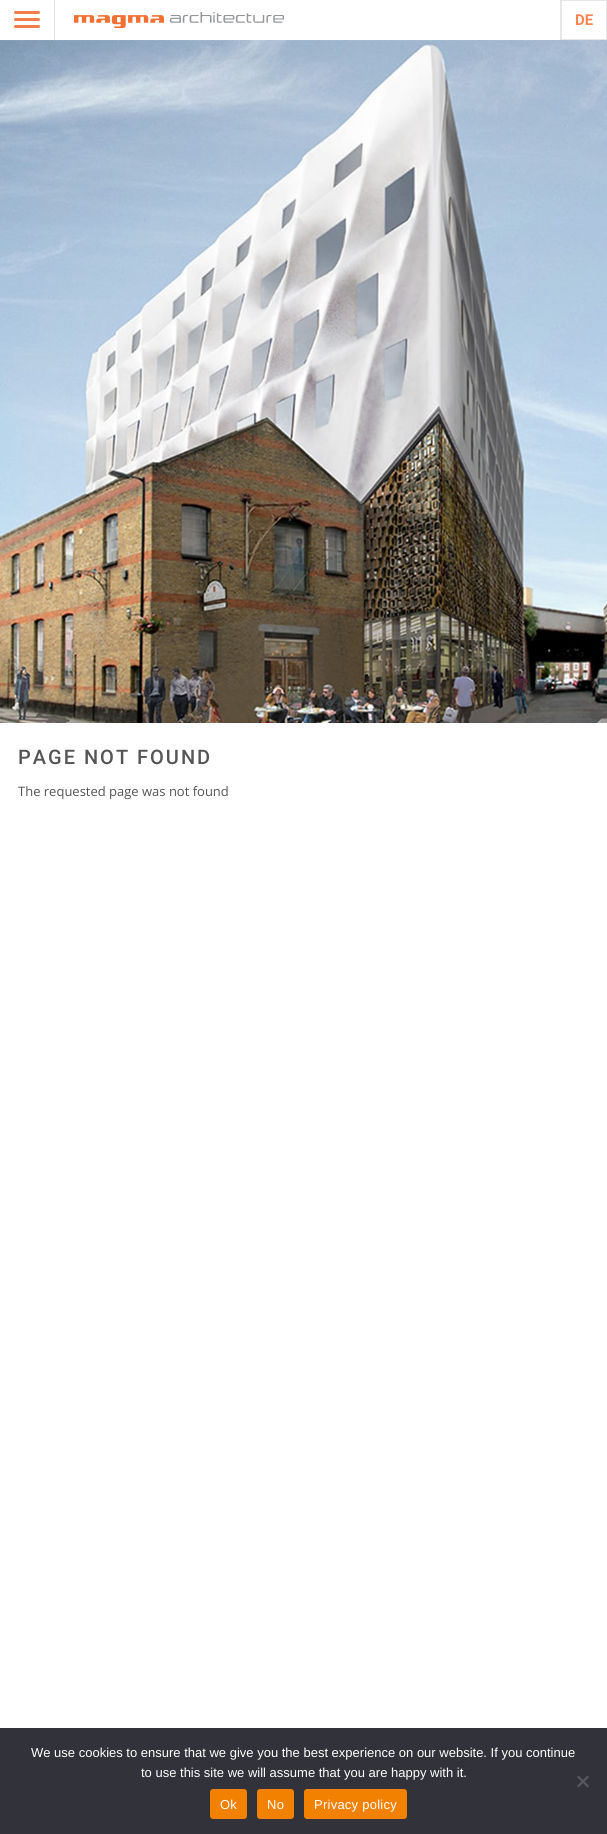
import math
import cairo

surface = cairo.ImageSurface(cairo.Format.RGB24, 607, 1834)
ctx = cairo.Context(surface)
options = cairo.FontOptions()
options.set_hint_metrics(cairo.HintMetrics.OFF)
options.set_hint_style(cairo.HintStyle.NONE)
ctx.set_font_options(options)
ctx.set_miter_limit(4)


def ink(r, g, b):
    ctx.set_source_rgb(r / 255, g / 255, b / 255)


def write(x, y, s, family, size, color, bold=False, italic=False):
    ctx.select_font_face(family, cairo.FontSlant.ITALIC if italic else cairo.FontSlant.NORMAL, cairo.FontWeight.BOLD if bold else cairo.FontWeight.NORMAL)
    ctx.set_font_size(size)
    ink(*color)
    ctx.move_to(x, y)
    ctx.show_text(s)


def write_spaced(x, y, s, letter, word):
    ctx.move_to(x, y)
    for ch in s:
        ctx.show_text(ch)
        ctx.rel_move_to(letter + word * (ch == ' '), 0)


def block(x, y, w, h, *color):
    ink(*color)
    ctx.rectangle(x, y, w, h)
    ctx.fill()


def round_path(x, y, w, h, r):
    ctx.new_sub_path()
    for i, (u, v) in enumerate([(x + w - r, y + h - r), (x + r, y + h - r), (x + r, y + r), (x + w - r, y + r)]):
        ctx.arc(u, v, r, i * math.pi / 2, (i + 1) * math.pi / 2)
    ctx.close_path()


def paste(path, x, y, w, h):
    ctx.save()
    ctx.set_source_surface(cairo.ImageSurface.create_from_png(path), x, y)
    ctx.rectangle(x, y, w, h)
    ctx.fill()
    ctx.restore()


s1 = dict(family="Roboto", size=15, color=(255, 134, 84), bold=True)
s2 = dict(family="Open Sans", size=13, color=(85, 85, 85))
s3 = dict(family="Liberation Sans", size=13, color=(255, 255, 255))

ink(255, 255, 255)
ctx.paint()
block(54, 0, 1, 40, 230, 230, 230)
ink(242, 126, 73)
round_path(14, 11, 26, 3, 1.5)
ctx.fill()
round_path(14, 18, 26, 3, 1.5)
ctx.fill()
round_path(14, 25, 26, 3, 1.5)
ctx.fill()
paste("pic1.png", 74, 12, 210, 16)
ctx.rectangle(591.5, 0.5, 15, 34)
ink(250, 250, 250)
ctx.set_line_width(1)
ctx.stroke()
ctx.rectangle(560.5, 0.5, 46, 39)
ink(230, 230, 230)
ctx.stroke()
ctx.set_source_rgba(1, 1, 1, 0.9)
ctx.rectangle(591, 1, 15, 34)
ctx.fill()
ctx.rectangle(561.5, 0.5, 45, 39)
ink(230, 230, 230)
ctx.stroke()
write(575, 25, "DE", **s1)
paste("pic2.png", 0, 40, 607, 683)
ctx.select_font_face("Roboto Medium")
ctx.set_font_size(20)
ink(85, 85, 85)
write_spaced(18, 764, "PAGE NOT FOUND", 2, 0)
write(18, 796, "The requested page was not found", **s2)
block(0, 1728, 607, 106, 50, 50, 58)
write(31, 1757, "We use cookies to ensure that we give you the best experience on our website. If you continue", **s3)
write(141, 1777, "to use this site we will assume that you are happy with it.", **s3)
ink(89, 89, 93)
ctx.new_path()
ctx.move_to(587.5, 1775.5)
ctx.line_to(589, 1777)
ctx.line_to(578.5, 1787.5)
ctx.line_to(577, 1786)
ctx.close_path()
ctx.fill()
ctx.new_path()
ctx.move_to(577, 1777)
ctx.line_to(578.5, 1775.5)
ctx.line_to(589, 1786)
ctx.line_to(587.5, 1787.5)
ctx.close_path()
ctx.fill()
ink(242, 129, 0)
round_path(210, 1789, 37, 30, 3)
ctx.fill()
ink(255, 255, 255)
write_spaced(220, 1809, "Ok", 0.25, 0)
ink(242, 129, 0)
round_path(257, 1789, 37, 30, 3)
ctx.fill()
ink(255, 255, 255)
write_spaced(267, 1809, "No", 0.25, 0)
ink(242, 129, 0)
round_path(304, 1789, 103, 30, 3)
ctx.fill()
ink(255, 255, 255)
write_spaced(314, 1809, "Privacy policy", 0.25, 0)
surface.write_to_png("screenshot.png")
